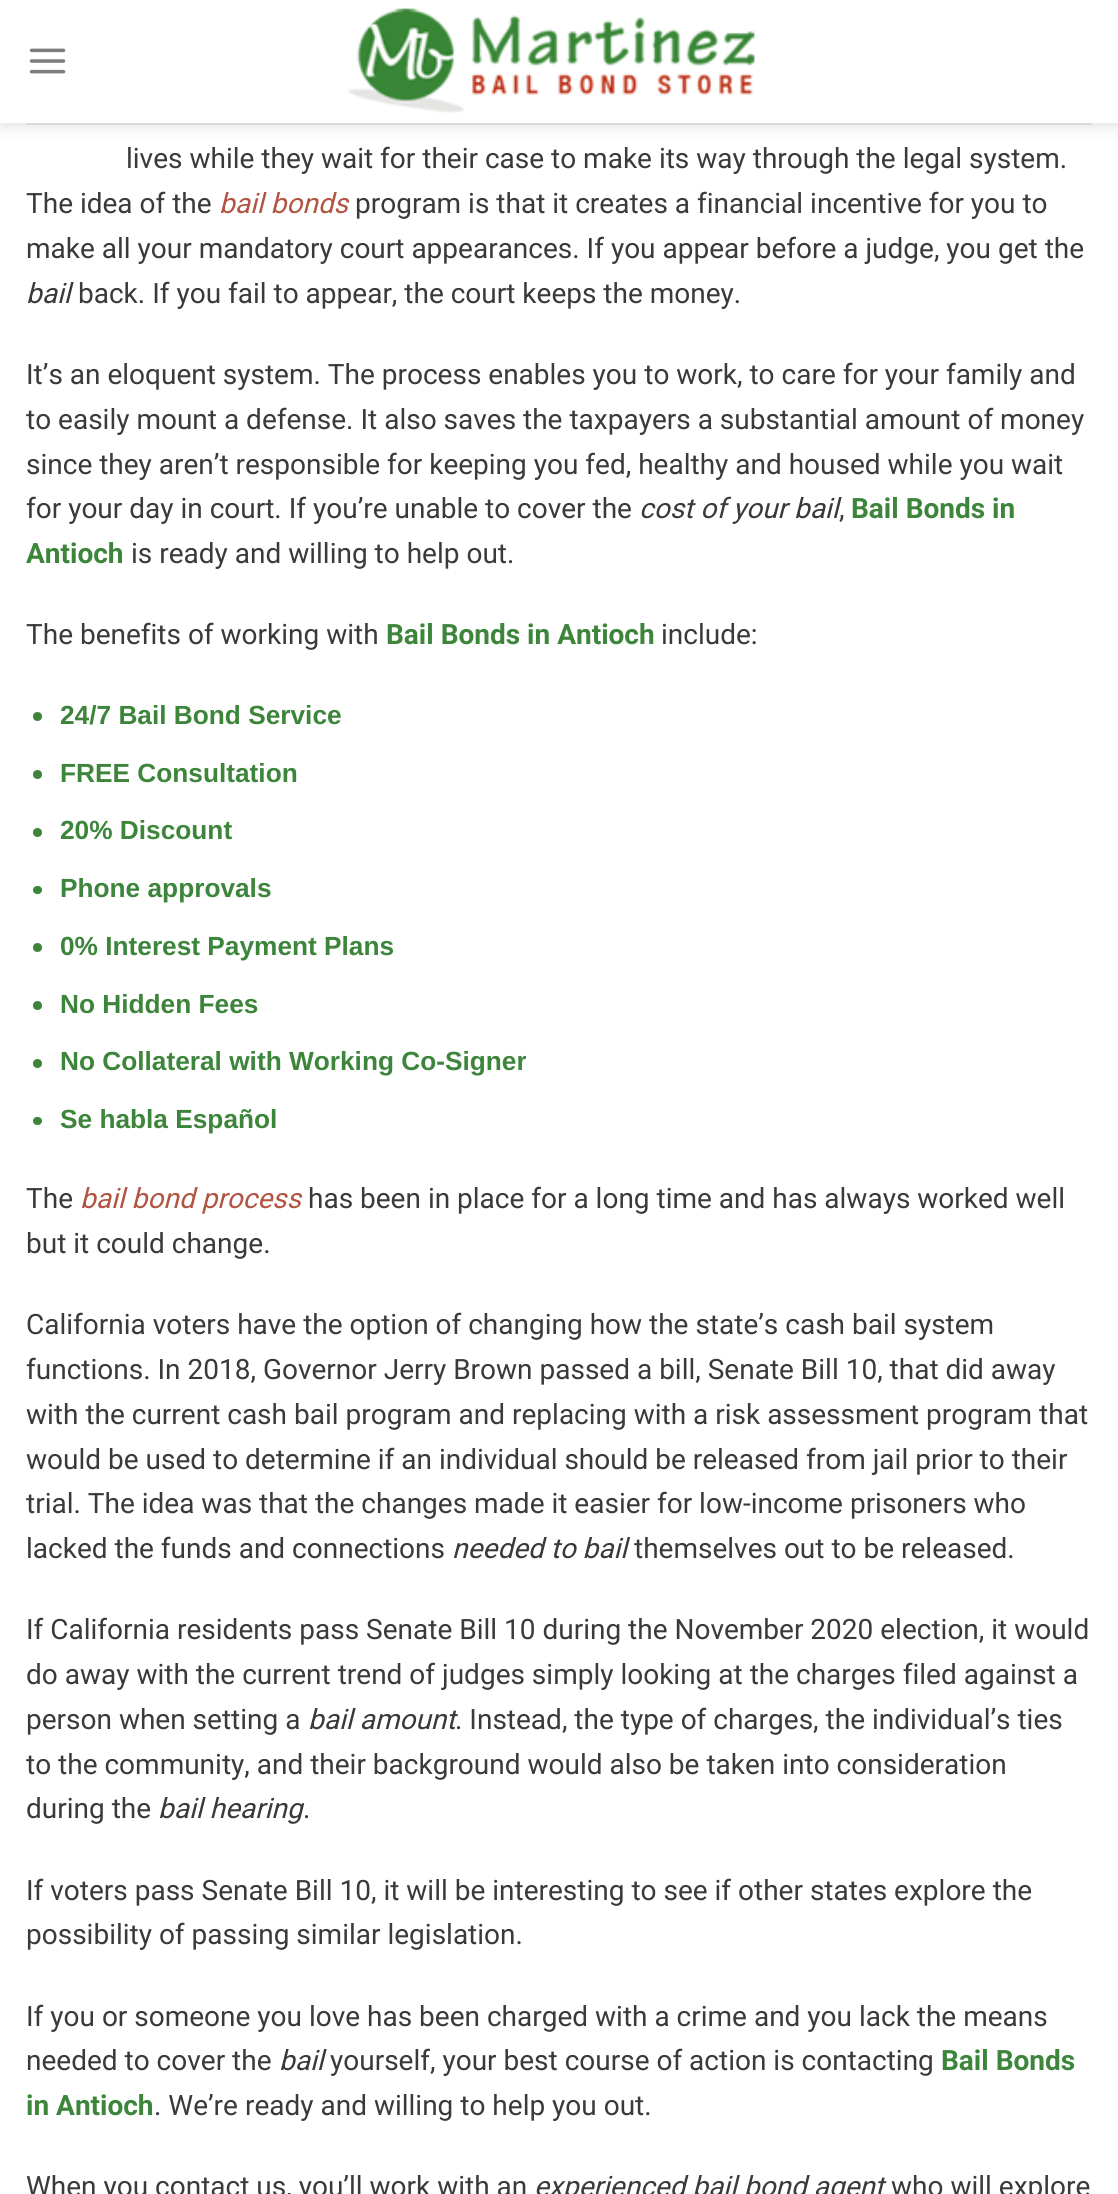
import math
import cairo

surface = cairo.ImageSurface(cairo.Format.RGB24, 1118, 2194)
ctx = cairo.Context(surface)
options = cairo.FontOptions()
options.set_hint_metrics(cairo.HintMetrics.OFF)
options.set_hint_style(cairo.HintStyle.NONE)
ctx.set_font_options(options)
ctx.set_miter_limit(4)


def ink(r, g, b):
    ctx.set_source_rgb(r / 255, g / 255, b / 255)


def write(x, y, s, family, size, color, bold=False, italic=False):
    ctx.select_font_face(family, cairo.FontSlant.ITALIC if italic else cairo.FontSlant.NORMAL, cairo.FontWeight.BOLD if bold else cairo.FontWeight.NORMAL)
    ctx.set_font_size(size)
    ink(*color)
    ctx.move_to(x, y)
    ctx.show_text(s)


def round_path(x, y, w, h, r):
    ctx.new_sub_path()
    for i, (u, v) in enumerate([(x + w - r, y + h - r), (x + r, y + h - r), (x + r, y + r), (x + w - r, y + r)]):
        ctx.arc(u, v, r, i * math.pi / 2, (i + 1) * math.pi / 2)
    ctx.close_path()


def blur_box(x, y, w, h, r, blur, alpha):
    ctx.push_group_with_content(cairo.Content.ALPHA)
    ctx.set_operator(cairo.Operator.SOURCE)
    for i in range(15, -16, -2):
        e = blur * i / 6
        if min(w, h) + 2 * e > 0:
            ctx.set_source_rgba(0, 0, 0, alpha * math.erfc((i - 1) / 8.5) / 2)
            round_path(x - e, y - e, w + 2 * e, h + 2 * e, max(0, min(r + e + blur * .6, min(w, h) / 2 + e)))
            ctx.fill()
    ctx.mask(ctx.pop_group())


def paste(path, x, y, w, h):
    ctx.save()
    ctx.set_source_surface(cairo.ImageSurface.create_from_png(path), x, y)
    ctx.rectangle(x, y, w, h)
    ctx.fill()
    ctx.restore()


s1 = dict(family="Roboto", size=28, color=(58, 58, 58))
s2 = dict(family="Roboto", size=28, color=(178, 84, 66), italic=True)
s3 = dict(family="Roboto", size=28, color=(58, 58, 58), italic=True)
s4 = dict(family="Roboto", size=28, color=(60, 133, 59), bold=True)
s5 = dict(family="Liberation Sans", size=26.25, color=(60, 133, 59), bold=True)

ink(255, 255, 255)
ctx.paint()
ctx.save()
ctx.set_fill_rule(cairo.FillRule.EVEN_ODD)
ctx.new_path()
ctx.move_to(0, 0)
ctx.line_to(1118, 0)
ctx.line_to(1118, 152)
ctx.line_to(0, 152)
ctx.close_path()
ctx.move_to(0, 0)
ctx.line_to(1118, 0)
ctx.line_to(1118, 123)
ctx.line_to(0, 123)
ctx.close_path()
ctx.clip()
ink(0, 0, 0)
blur_box(2, 2, 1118, 122, 0, 9, 0.15)
ctx.restore()
paste("pic1.png", 29, 48, 37, 26)
paste("pic2.png", 348, 8, 407, 105)
ctx.set_source_rgba(0.227, 0.227, 0.227, 0.1)
ctx.rectangle(26, 123, 1066, 2)
ctx.fill()
ctx.set_source_rgba(1, 1, 1, 0.9)
ctx.rectangle(0, 122, 1118, 1)
ctx.fill()
write(126, 168, "lives while they wait for their case to make its way through the legal system.", **s1)
write(26, 213, "The idea of the", **s1)
write(219, 213, "bail bonds", **s2)
write(355, 213, "program is that it creates a financial incentive for you to", **s1)
write(26, 258, "make all your mandatory court appearances. If you appear before a judge, you get the", **s1)
write(26, 303, "bail", **s3)
write(78, 303, "back. If you fail to appear, the court keeps the money.", **s1)
write(26, 384, "It’s an eloquent system. The process enables you to work, to care for your family and", **s1)
write(26, 429, "to easily mount a defense. It also saves the taxpayers a substantial amount of money", **s1)
write(26, 474, "since they aren’t responsible for keeping you fed, healthy and housed while you wait", **s1)
write(26, 518, "for your day in court. If you’re unable to cover the", **s1)
write(639, 518, "cost of your bail", **s3)
write(851, 518, "Bail Bonds in", **s4)
write(839, 518, ",", **s1)
write(26, 563, "Antioch", **s4)
write(131, 563, "is ready and willing to help out.", **s1)
write(26, 644, "The benefits of working with", **s1)
write(386, 644, "Bail Bonds in Antioch", **s4)
write(661, 644, "include:", **s1)
ink(60, 133, 59)
ctx.new_path()
ctx.arc(37.5, 716.5, 4.5, 0, 2 * math.pi)
ctx.fill()
write(60, 724, "24/7 Bail Bond Service", **s5)
ctx.new_path()
ctx.arc(37.5, 774.5, 4.5, 0, 2 * math.pi)
ctx.fill()
write(60, 782, "FREE Consultation", **s5)
ctx.new_path()
ctx.arc(37.5, 832.5, 4.5, 0, 2 * math.pi)
ctx.fill()
write(60, 839, "20% Discount", **s5)
round_path(33, 886, 9, 8, 4)
ctx.fill()
write(60, 897, "Phone approvals", **s5)
ctx.new_path()
ctx.arc(37.5, 947.5, 4.5, 0, 2 * math.pi)
ctx.fill()
write(60, 955, "0% Interest Payment Plans", **s5)
ctx.new_path()
ctx.arc(37.5, 1005.5, 4.5, 0, 2 * math.pi)
ctx.fill()
write(60, 1013, "No Hidden Fees", **s5)
ctx.new_path()
ctx.arc(37.5, 1063.5, 4.5, 0, 2 * math.pi)
ctx.fill()
write(60, 1070, "No Collateral with Working Co-Signer", **s5)
round_path(33, 1117, 9, 8, 4)
ctx.fill()
write(60, 1128, "Se habla Español", **s5)
write(26, 1208, "The", **s1)
write(80, 1208, "bail bond process", **s2)
write(308, 1208, "has been in place for a long time and has always worked well", **s1)
write(26, 1253, "but it could change.", **s1)
write(26, 1334, "California voters have the option of changing how the state’s cash bail system", **s1)
write(26, 1379, "functions. In 2018, Governor Jerry Brown passed a bill, Senate Bill 10, that did away", **s1)
write(26, 1424, "with the current cash bail program and replacing with a risk assessment program that", **s1)
write(26, 1469, "would be used to determine if an individual should be released from jail prior to their", **s1)
write(26, 1513, "trial. The idea was that the changes made it easier for low-income prisoners who", **s1)
write(26, 1558, "lacked the funds and connections", **s1)
write(452, 1558, "needed to bail", **s3)
write(634, 1558, "themselves out to be released.", **s1)
write(26, 1639, "If California residents pass Senate Bill 10 during the November 2020 election, it would", **s1)
write(26, 1684, "do away with the current trend of judges simply looking at the charges filed against a", **s1)
write(26, 1729, "person when setting a", **s1)
write(308, 1729, "bail amount", **s3)
write(455, 1729, ". Instead, the type of charges, the individual’s ties", **s1)
write(26, 1774, "to the community, and their background would also be taken into consideration", **s1)
write(26, 1818, "during the", **s1)
write(158, 1818, "bail hearing", **s3)
write(303, 1818, ".", **s1)
write(26, 1900, "If voters pass Senate Bill 10, it will be interesting to see if other states explore the", **s1)
write(26, 1944, "possibility of passing similar legislation.", **s1)
write(26, 2026, "If you or someone you love has been charged with a crime and you lack the means", **s1)
write(26, 2070, "needed to cover the", **s1)
write(279, 2070, "bail", **s3)
write(330, 2070, "yourself, your best course of action is contacting", **s1)
write(941, 2070, "Bail Bonds", **s4)
write(26, 2115, "in Antioch", **s4)
write(154, 2115, ". We’re ready and willing to help you out.", **s1)
write(26, 2196, "When you contact us, you’ll work with an", **s1)
write(534, 2196, "experienced bail bond agent", **s3)
write(891, 2196, "who will explore", **s1)
surface.write_to_png("screenshot.png")
